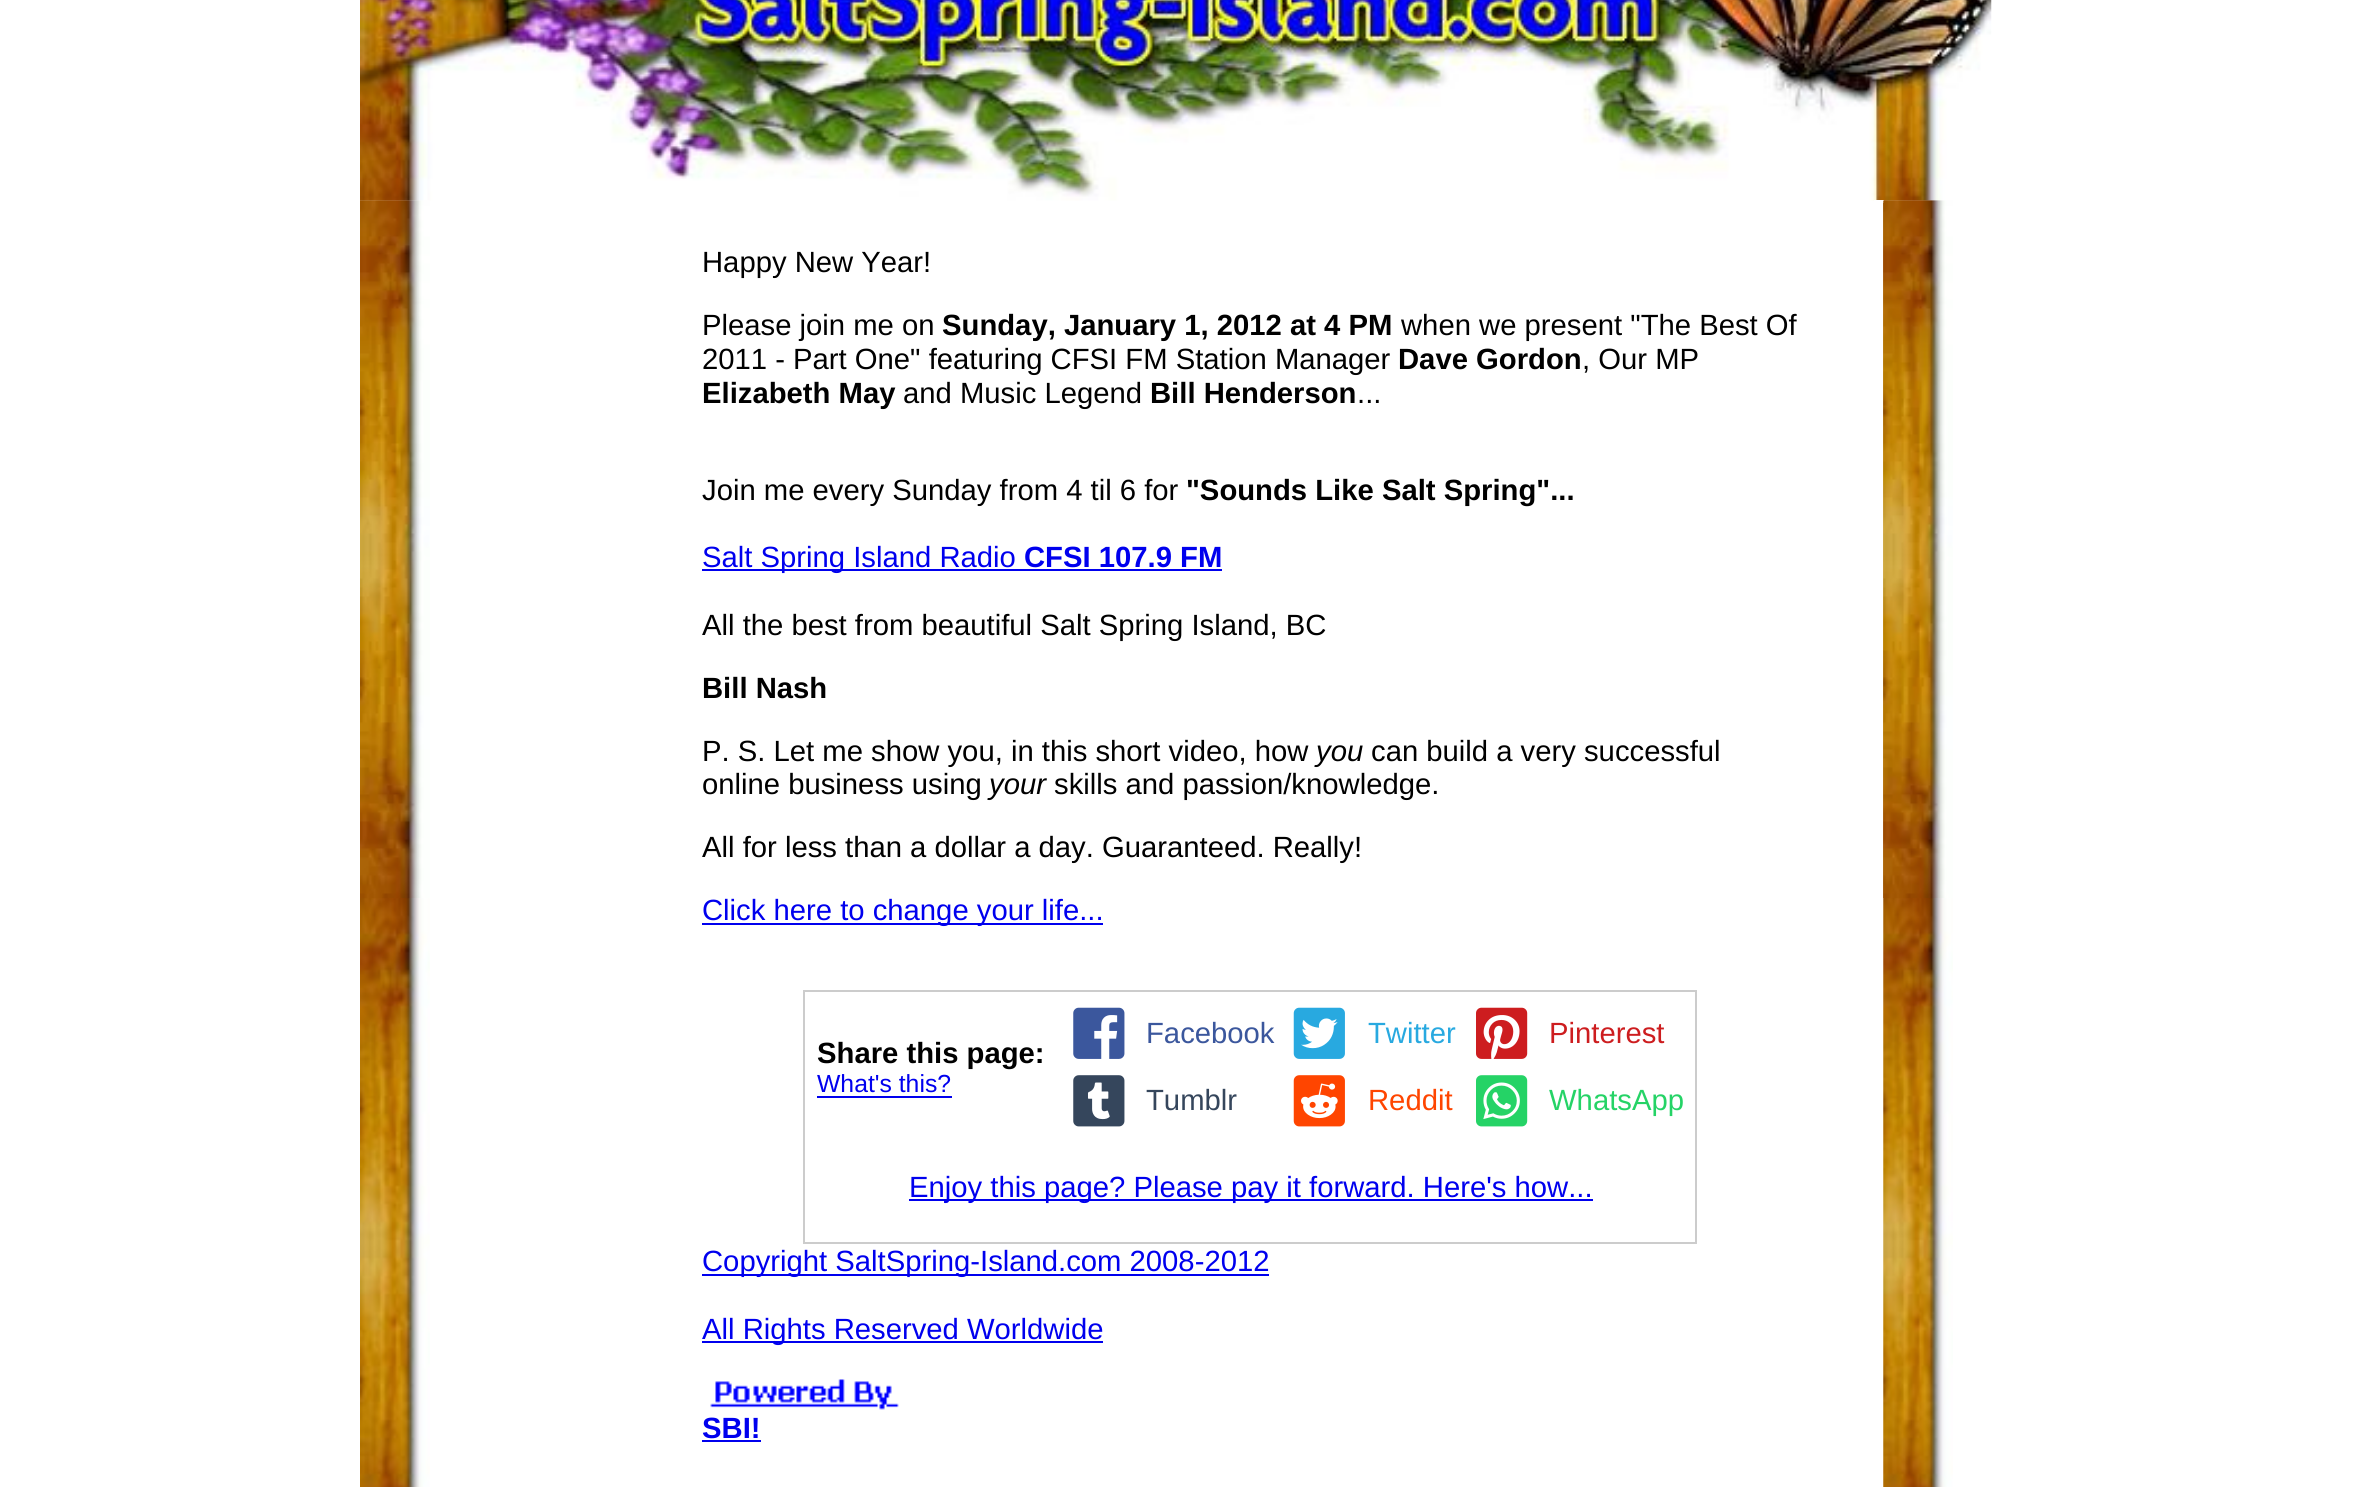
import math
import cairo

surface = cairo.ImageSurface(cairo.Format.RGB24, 2358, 1487)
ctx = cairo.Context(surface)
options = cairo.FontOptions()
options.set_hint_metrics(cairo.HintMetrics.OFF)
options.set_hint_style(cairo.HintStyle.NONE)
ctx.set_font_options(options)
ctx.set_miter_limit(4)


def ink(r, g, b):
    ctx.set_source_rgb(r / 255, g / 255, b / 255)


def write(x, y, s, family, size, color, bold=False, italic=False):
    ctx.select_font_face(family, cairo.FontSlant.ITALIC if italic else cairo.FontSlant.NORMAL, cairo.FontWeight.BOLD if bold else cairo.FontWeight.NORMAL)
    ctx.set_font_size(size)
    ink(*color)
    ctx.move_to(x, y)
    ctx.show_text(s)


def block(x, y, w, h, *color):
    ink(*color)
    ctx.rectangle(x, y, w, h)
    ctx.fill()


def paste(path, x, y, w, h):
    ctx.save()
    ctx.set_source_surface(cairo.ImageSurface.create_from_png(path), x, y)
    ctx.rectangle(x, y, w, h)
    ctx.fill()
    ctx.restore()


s1 = dict(family="Liberation Sans", size=29.25, color=(0, 0, 0))
s2 = dict(family="Liberation Sans", size=29.25, color=(0, 0, 0), bold=True)
s3 = dict(family="Liberation Sans", size=29.25, color=(0, 0, 238))
s4 = dict(family="Liberation Sans", size=29.25, color=(0, 0, 238), bold=True)
s5 = dict(family="Liberation Sans", size=29.25, color=(0, 0, 0), italic=True)
s6 = dict(family="Liberation Sans", size=29.25, color=(59, 87, 157))
s7 = dict(family="Liberation Sans", size=29.25, color=(40, 169, 224))
s8 = dict(family="Liberation Sans", size=29.25, color=(205, 29, 31))
s9 = dict(family="Liberation Sans", size=24.75, color=(0, 0, 238))
s10 = dict(family="Liberation Sans", size=29.25, color=(53, 70, 92))
s11 = dict(family="Liberation Sans", size=29.25, color=(255, 69, 0))
s12 = dict(family="Liberation Sans", size=29.25, color=(37, 211, 102))

ink(255, 255, 255)
ctx.paint()
paste("pic2.png", 360, 200, 70, 1287)
paste("pic11.png", 1883, 200, 70, 1287)
paste("pic1.png", 360, 0, 1632, 201)
paste("pic3.png", 360, 200, 70, 698)
block(1874, 200, 10, 3, 255, 255, 255)
write(702, 272, "Happy New Year!", **s1)
write(702, 335, "Please join me on", **s1)
write(942, 335, "Sunday, January 1, 2012 at 4 PM", **s2)
write(1401, 335, "when we present \"The Best Of", **s1)
write(702, 369, "2011 - Part One\" featuring CFSI FM Station Manager", **s1)
write(1398, 369, "Dave Gordon", **s2)
write(1582, 369, ", Our MP", **s1)
write(702, 403, "Elizabeth May", **s2)
write(903, 403, "and Music Legend", **s1)
write(1150, 403, "Bill Henderson", **s2)
write(1357, 403, "...", **s1)
write(702, 500, "Join me every Sunday from 4 til 6 for", **s1)
write(1186, 500, "\"Sounds Like Salt Spring\"...", **s2)
block(702, 569, 520, 2, 0, 0, 238)
write(702, 567, "Salt Spring Island Radio", **s3)
write(1024, 567, "CFSI 107.9 FM", **s4)
write(702, 635, "All the best from beautiful Salt Spring Island, BC", **s1)
write(702, 698, "Bill Nash", **s2)
write(702, 761, "P. S. Let me show you, in this short video, how", **s1)
write(1316, 761, "you", **s5)
write(1371, 761, "can build a very successful", **s1)
write(702, 794, "online business using", **s1)
write(989, 794, "your", **s5)
write(1054, 794, "skills and passion/knowledge.", **s1)
write(702, 857, "All for less than a dollar a day. Guaranteed. Really!", **s1)
block(702, 923, 401, 2, 0, 0, 238)
write(702, 920, "Click here to change your life...", **s3)
ctx.rectangle(804, 991, 892, 252)
ink(204, 204, 204)
ctx.stroke()
paste("pic4.png", 1073, 1007, 52, 52)
write(1146, 1043, "Facebook", **s6)
paste("pic5.png", 1293, 1007, 52, 52)
write(1368, 1043, "Twitter", **s7)
paste("pic6.png", 1476, 1007, 52, 52)
write(1549, 1043, "Pinterest", **s8)
write(817, 1063, "Share this page:", **s2)
write(817, 1092, "What's this?", **s9)
block(817, 1096, 135, 2, 0, 0, 238)
paste("pic7.png", 1073, 1075, 52, 52)
write(1146, 1110, "Tumblr", **s10)
paste("pic8.png", 1293, 1075, 52, 52)
write(1368, 1110, "Reddit", **s11)
paste("pic9.png", 1476, 1075, 52, 52)
write(1549, 1110, "WhatsApp", **s12)
block(909, 1199, 684, 2, 0, 0, 238)
write(909, 1197, "Enjoy this page? Please pay it forward. Here's how...", **s3)
block(702, 1274, 567, 2, 0, 0, 238)
write(702, 1271, "Copyright SaltSpring-Island.com 2008-2012", **s3)
block(702, 1341, 401, 2, 0, 0, 238)
write(702, 1339, "All Rights Reserved Worldwide", **s3)
paste("pic10.png", 710, 1379, 189, 31)
write(702, 1438, "SBI!", **s4)
block(702, 1440, 59, 2, 0, 0, 238)
paste("pic12.png", 1883, 200, 70, 698)
surface.write_to_png("screenshot.png")
